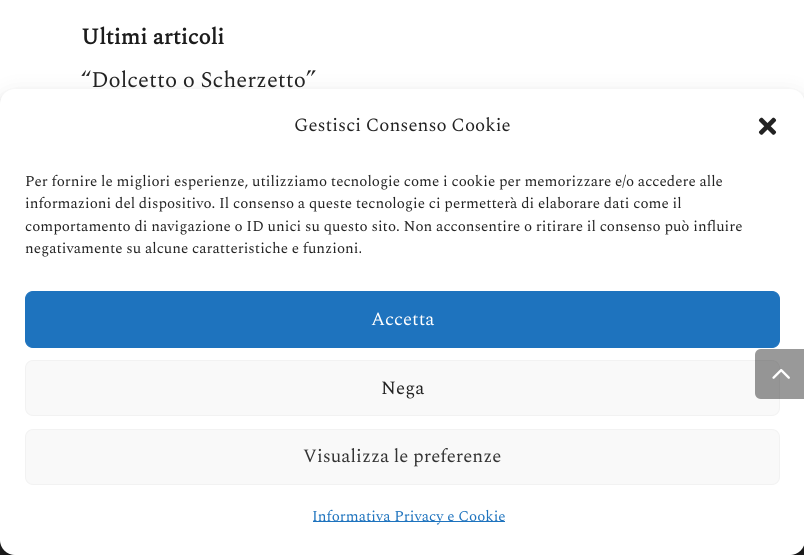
import math
import cairo

surface = cairo.ImageSurface(cairo.Format.RGB24, 804, 555)
ctx = cairo.Context(surface)
options = cairo.FontOptions()
options.set_hint_metrics(cairo.HintMetrics.OFF)
options.set_hint_style(cairo.HintStyle.NONE)
ctx.set_font_options(options)
ctx.set_miter_limit(4)


def ink(r, g, b):
    ctx.set_source_rgb(r / 255, g / 255, b / 255)


def write(x, y, s, family, size, color, bold=False, italic=False):
    ctx.select_font_face(family, cairo.FontSlant.ITALIC if italic else cairo.FontSlant.NORMAL, cairo.FontWeight.BOLD if bold else cairo.FontWeight.NORMAL)
    ctx.set_font_size(size)
    ink(*color)
    ctx.move_to(x, y)
    ctx.show_text(s)


def block(x, y, w, h, *color):
    ink(*color)
    ctx.rectangle(x, y, w, h)
    ctx.fill()


def round_path(x, y, w, h, r):
    ctx.new_sub_path()
    for i, (u, v) in enumerate([(x + w - r, y + h - r), (x + r, y + h - r), (x + r, y + r), (x + w - r, y + r)]):
        ctx.arc(u, v, r, i * math.pi / 2, (i + 1) * math.pi / 2)
    ctx.close_path()


def blur_box(x, y, w, h, r, blur, alpha):
    ctx.push_group_with_content(cairo.Content.ALPHA)
    ctx.set_operator(cairo.Operator.SOURCE)
    for i in range(15, -16, -2):
        e = blur * i / 6
        if min(w, h) + 2 * e > 0:
            ctx.set_source_rgba(0, 0, 0, alpha * math.erfc((i - 1) / 8.5) / 2)
            round_path(x - e, y - e, w + 2 * e, h + 2 * e, max(0, min(r + e + blur * .6, min(w, h) / 2 + e)))
            ctx.fill()
    ctx.mask(ctx.pop_group())


def paste(path, x, y, w, h):
    ctx.save()
    ctx.set_source_surface(cairo.ImageSurface.create_from_png(path), x, y)
    ctx.rectangle(x, y, w, h)
    ctx.fill()
    ctx.restore()


s1 = dict(family="Spectral", size=22.5, color=(28, 28, 28), bold=True)
s2 = dict(family="Spectral", size=22.5, color=(35, 35, 35))
s3 = dict(family="Spectral", size=18.75, color=(35, 35, 35))
s4 = dict(family="Spectral", size=15, color=(35, 35, 35))
s5 = dict(family="Spectral", size=18.75, color=(255, 255, 255))
s6 = dict(family="Spectral", size=18.75, color=(51, 51, 51))
s7 = dict(family="Spectral", size=15, color=(30, 115, 190))

ink(255, 255, 255)
ctx.paint()
write(81, 44, "Ultimi articoli", **s1)
write(81, 87, "“Dolcetto o Scherzetto”", **s2)
block(0, 540, 804, 15, 34, 34, 34)
ink(0, 0, 0)
blur_box(0, 96, 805, 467, 15, 4, 0.23)
blur_box(0, 101, 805, 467, 15, 12.5, 0.19)
ink(255, 255, 255)
round_path(0, 89, 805, 466, 15)
ctx.fill()
ink(249, 249, 249)
round_path(25.5, 360.5, 754, 55, 7.5)
ctx.fill_preserve()
ink(242, 242, 242)
ctx.set_line_width(1)
ctx.stroke()
ctx.set_source_rgba(0, 0, 0, 0.4)
ctx.new_path()
ctx.move_to(761, 349)
ctx.line_to(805, 349)
ctx.line_to(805, 399)
ctx.line_to(761, 399)
ctx.curve_to(757.5, 399, 755, 396.5, 755, 393)
ctx.line_to(755, 355)
ctx.curve_to(755, 351.5, 757.5, 349, 761, 349)
ctx.close_path()
ctx.fill()
paste("pic1.png", 772, 369, 18, 10)
write(294, 131, "Gestisci Consenso Cookie", **s3)
paste("pic2.png", 758, 117, 19, 18)
write(25, 186, "Per fornire le migliori esperienze, utilizziamo tecnologie come i cookie per memorizzare e/o accedere alle", **s4)
write(25, 208, "informazioni del dispositivo. Il consenso a queste tecnologie ci permetterà di elaborare dati come il", **s4)
write(25, 231, "comportamento di navigazione o ID unici su questo sito. Non acconsentire o ritirare il consenso può influire", **s4)
write(25, 253, "negativamente su alcune caratteristiche e funzioni.", **s4)
ink(30, 115, 190)
round_path(25.5, 291.5, 754, 56, 7.5)
ctx.fill_preserve()
ctx.stroke()
write(371, 325, "Accetta", **s5)
write(381, 394, "Nega", **s3)
ink(249, 249, 249)
round_path(25.5, 429.5, 754, 55, 7.5)
ctx.fill_preserve()
ink(242, 242, 242)
ctx.stroke()
write(303, 462, "Visualizza le preferenze", **s6)
block(313, 521, 192, 1, 30, 115, 190)
write(312, 521, "Informativa Privacy e Cookie", **s7)
surface.write_to_png("screenshot.png")
